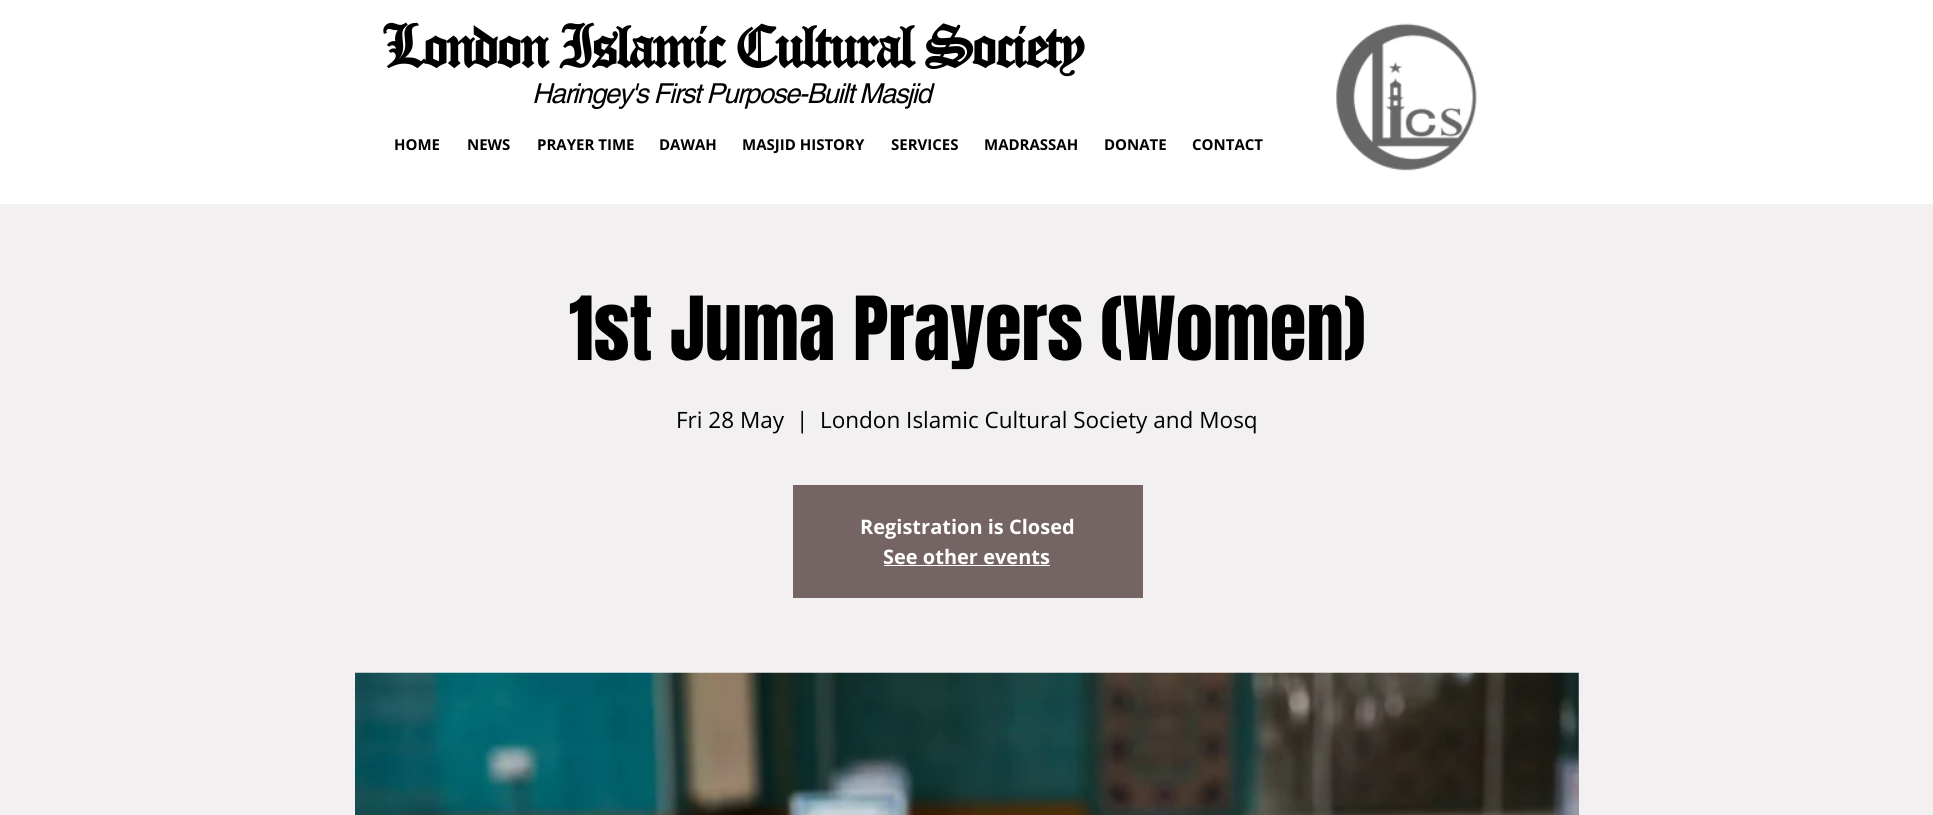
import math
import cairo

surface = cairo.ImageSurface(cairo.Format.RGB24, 1933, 815)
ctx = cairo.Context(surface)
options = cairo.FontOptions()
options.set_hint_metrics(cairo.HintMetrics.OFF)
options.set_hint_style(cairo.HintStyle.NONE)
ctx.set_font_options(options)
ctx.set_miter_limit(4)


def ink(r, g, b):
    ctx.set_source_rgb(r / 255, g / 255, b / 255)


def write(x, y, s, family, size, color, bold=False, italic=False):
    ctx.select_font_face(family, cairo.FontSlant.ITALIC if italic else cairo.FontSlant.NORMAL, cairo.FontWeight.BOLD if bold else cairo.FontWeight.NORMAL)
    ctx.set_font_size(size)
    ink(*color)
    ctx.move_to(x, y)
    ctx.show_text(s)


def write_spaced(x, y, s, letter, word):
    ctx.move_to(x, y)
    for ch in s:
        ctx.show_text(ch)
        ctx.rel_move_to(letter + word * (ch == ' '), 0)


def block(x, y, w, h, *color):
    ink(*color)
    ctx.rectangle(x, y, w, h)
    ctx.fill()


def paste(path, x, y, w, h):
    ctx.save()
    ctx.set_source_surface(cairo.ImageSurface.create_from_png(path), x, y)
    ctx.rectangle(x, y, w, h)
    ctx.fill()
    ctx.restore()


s1 = dict(family="Open Sans", size=15, color=(0, 0, 0), bold=True)
s2 = dict(family="Anton", size=75, color=(0, 0, 0))
s3 = dict(family="Open Sans", size=22.5, color=(0, 0, 0))
s4 = dict(family="Open Sans", size=20, color=(255, 255, 255), bold=True)

ink(255, 255, 255)
ctx.paint()
ctx.select_font_face("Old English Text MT", cairo.FontSlant.NORMAL, cairo.FontWeight.BOLD)
ctx.set_font_size(58.75)
ink(0, 0, 0)
write_spaced(382, 68, "London Islamic Cultural Society", -2.95, 0)
ctx.select_font_face("helvetica", cairo.FontSlant.ITALIC)
ctx.set_font_size(27.5)
write_spaced(532, 103, "Haringey's First Purpose-Built Masjid", -1.4, 0)
paste("pic1.png", 1336, 23, 141, 148)
write(394, 150, "HOME", **s1)
write(467, 150, "NEWS", **s1)
write(537, 150, "PRAYER TIME", **s1)
write(659, 150, "DAWAH", **s1)
write(742, 150, "MASJID HISTORY", **s1)
write(891, 150, "SERVICES", **s1)
write(984, 150, "MADRASSAH", **s1)
write(1104, 150, "DONATE", **s1)
write(1192, 150, "CONTACT", **s1)
block(0, 204, 1933, 611, 242, 240, 240)
write(569, 360, "1st Juma Prayers (Women)", **s2)
write(676, 428, "Fri 28 May", **s3)
write(796, 428, "|", **s3)
write(820, 428, "London Islamic Cultural Society and Mosq", **s3)
block(793, 485, 350, 113, 117, 100, 100)
write(860, 534, "Registration is Closed", **s4)
write(883, 564, "See other events", **s4)
block(884, 565, 166, 1, 255, 255, 255)
block(1578, 673, 1, 142, 163, 146, 146)
paste("pic2.png", 355, 672, 1224, 143)
surface.write_to_png("screenshot.png")
